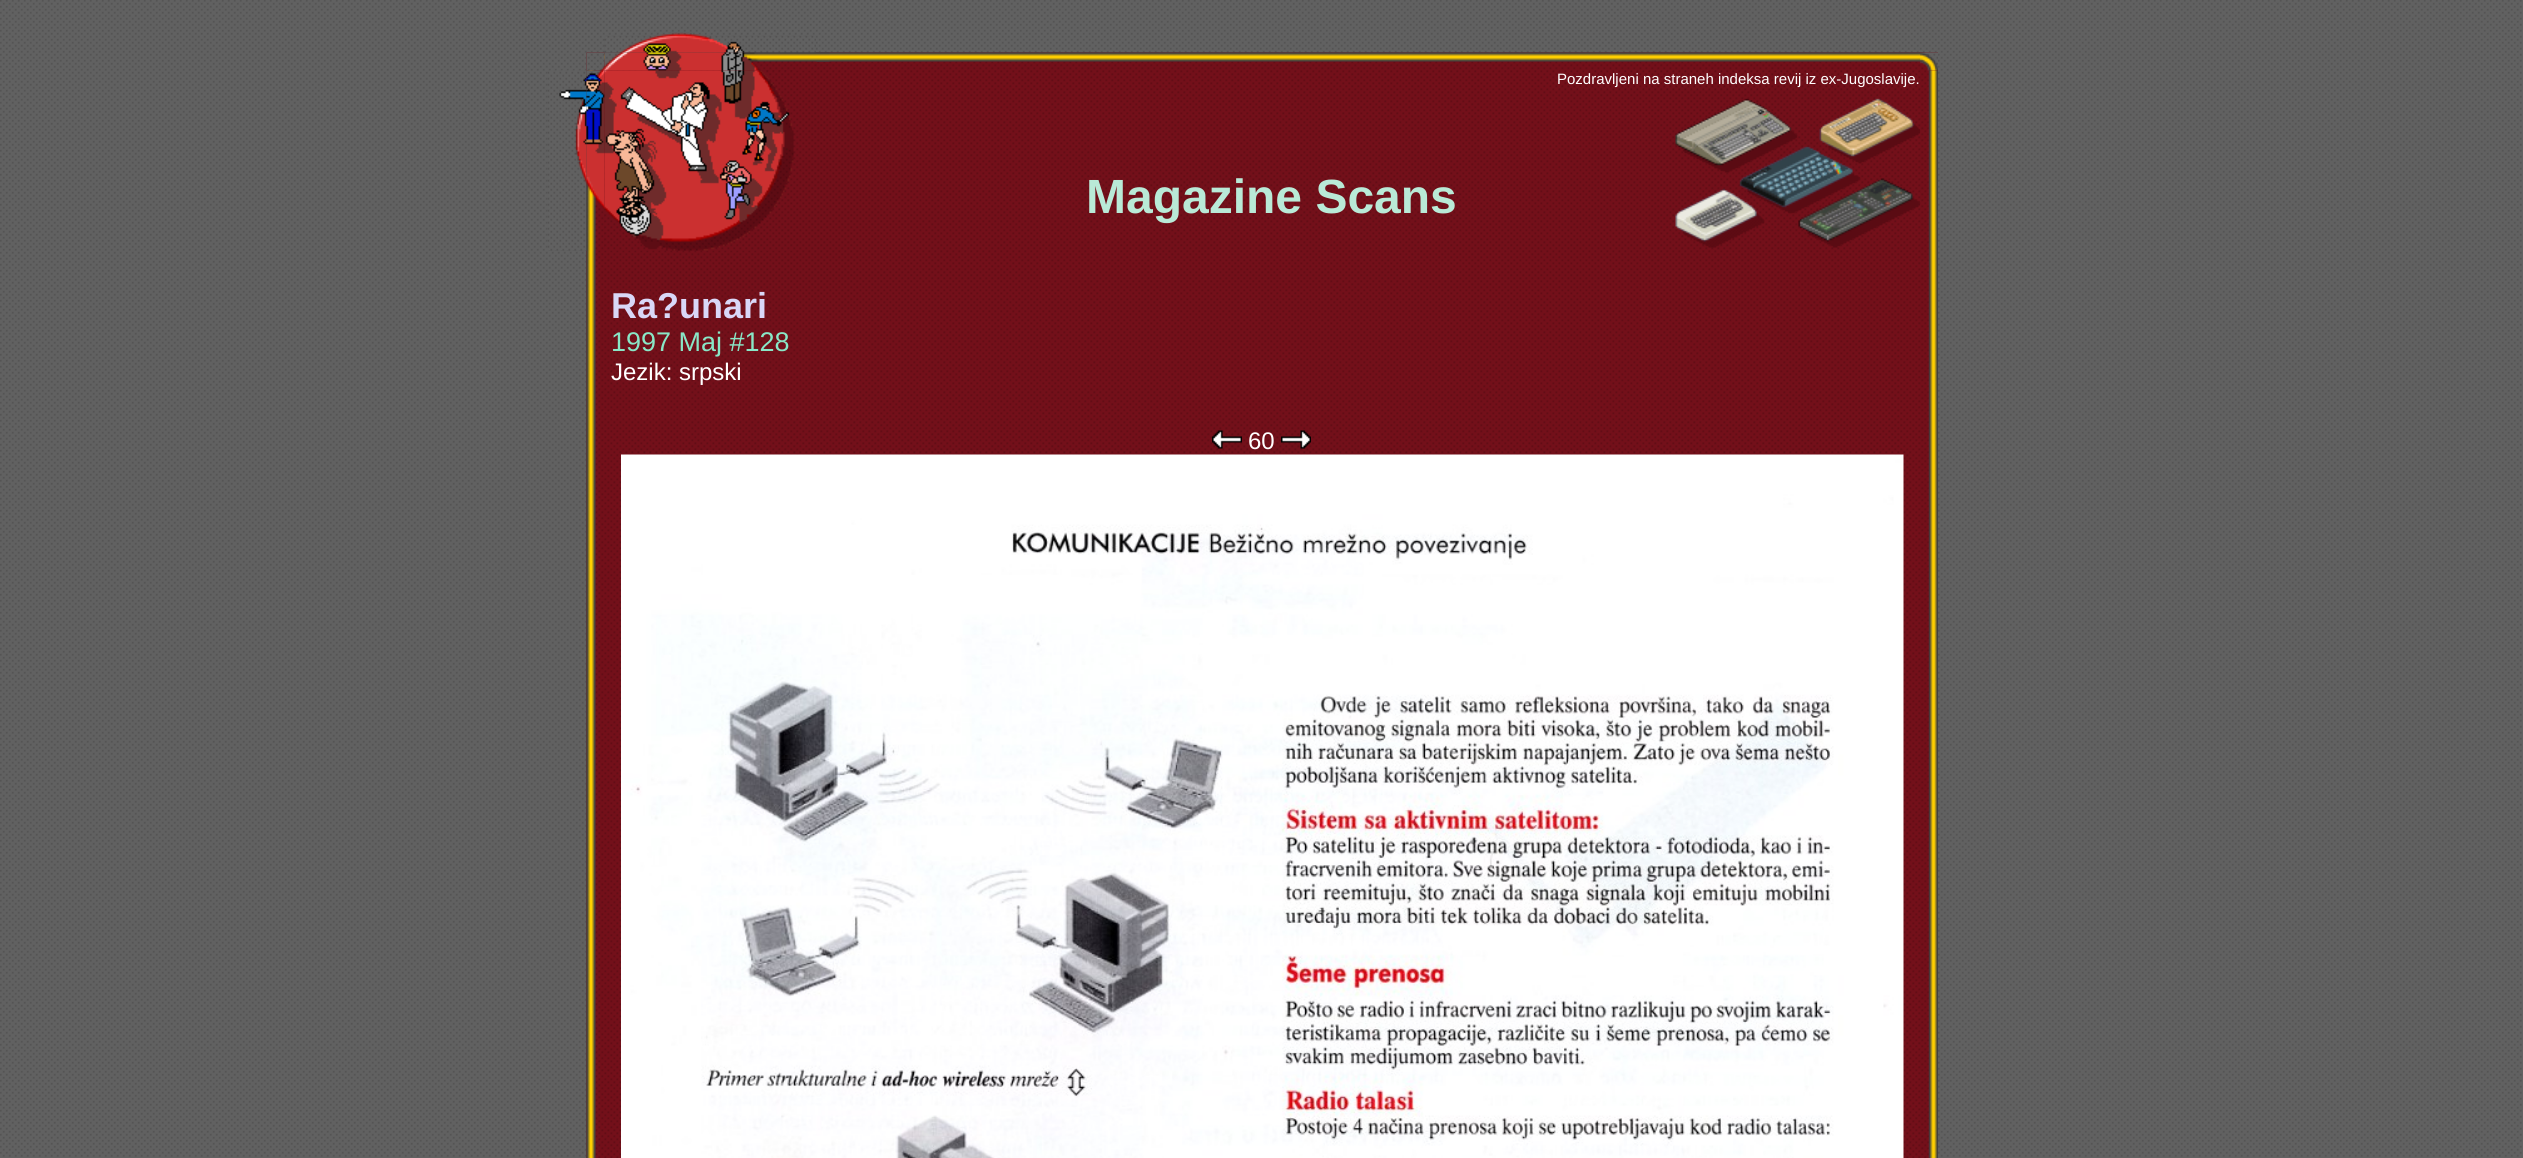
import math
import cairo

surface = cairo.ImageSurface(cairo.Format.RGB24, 2523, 1158)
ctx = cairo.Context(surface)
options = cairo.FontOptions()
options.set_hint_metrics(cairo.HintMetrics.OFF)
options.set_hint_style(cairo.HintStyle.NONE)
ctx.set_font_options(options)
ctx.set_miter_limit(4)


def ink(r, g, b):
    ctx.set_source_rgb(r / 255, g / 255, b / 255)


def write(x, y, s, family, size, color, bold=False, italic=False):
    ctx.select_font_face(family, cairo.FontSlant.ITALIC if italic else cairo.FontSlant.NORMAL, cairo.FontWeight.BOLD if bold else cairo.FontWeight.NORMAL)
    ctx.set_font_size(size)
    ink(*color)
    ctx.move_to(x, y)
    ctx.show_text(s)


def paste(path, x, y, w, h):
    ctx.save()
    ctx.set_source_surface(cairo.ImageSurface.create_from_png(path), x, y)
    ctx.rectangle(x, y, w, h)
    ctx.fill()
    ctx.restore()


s1 = dict(family="Liberation Sans", size=15, color=(255, 255, 255))
s2 = dict(family="Liberation Sans", size=48, color=(185, 234, 215), bold=True)
s3 = dict(family="Liberation Sans", size=36, color=(217, 215, 247), bold=True)
s4 = dict(family="Liberation Sans", size=27, color=(137, 231, 199))
s5 = dict(family="Liberation Sans", size=24, color=(255, 255, 255))

ink(97, 97, 97)
ctx.paint()
paste("pic1.png", 0, 0, 2522, 1157)
paste("pic4.png", 586, 52, 1352, 1106)
paste("pic6.png", 604, 52, 1316, 10)
paste("pic2.png", 604, 32, 212, 21)
paste("pic9.png", 586, 70, 10, 1088)
paste("pic3.png", 548, 70, 39, 181)
paste("pic5.png", 586, 52, 19, 19)
paste("pic7.png", 604, 52, 226, 19)
paste("pic16.png", 1928, 70, 10, 1088)
paste("pic8.png", 1920, 52, 18, 19)
paste("pic10.png", 586, 70, 19, 181)
paste("pic11.png", 604, 70, 190, 181)
write(1557, 84, "Pozdravljeni na straneh indeksa revij iz ex-Jugoslavije.", **s1)
write(1086, 213, "Magazine Scans", **s2)
paste("pic12.png", 1675, 98, 245, 150)
write(611, 318, "Ra?unari", **s3)
write(611, 351, "1997 Maj #128", **s4)
write(611, 380, "Jezik: srpski", **s5)
paste("pic13.png", 1212, 430, 30, 19)
write(1248, 449, "60", **s5)
paste("pic14.png", 1281, 430, 30, 19)
paste("pic15.png", 621, 454, 1283, 704)
surface.write_to_png("screenshot.png")
